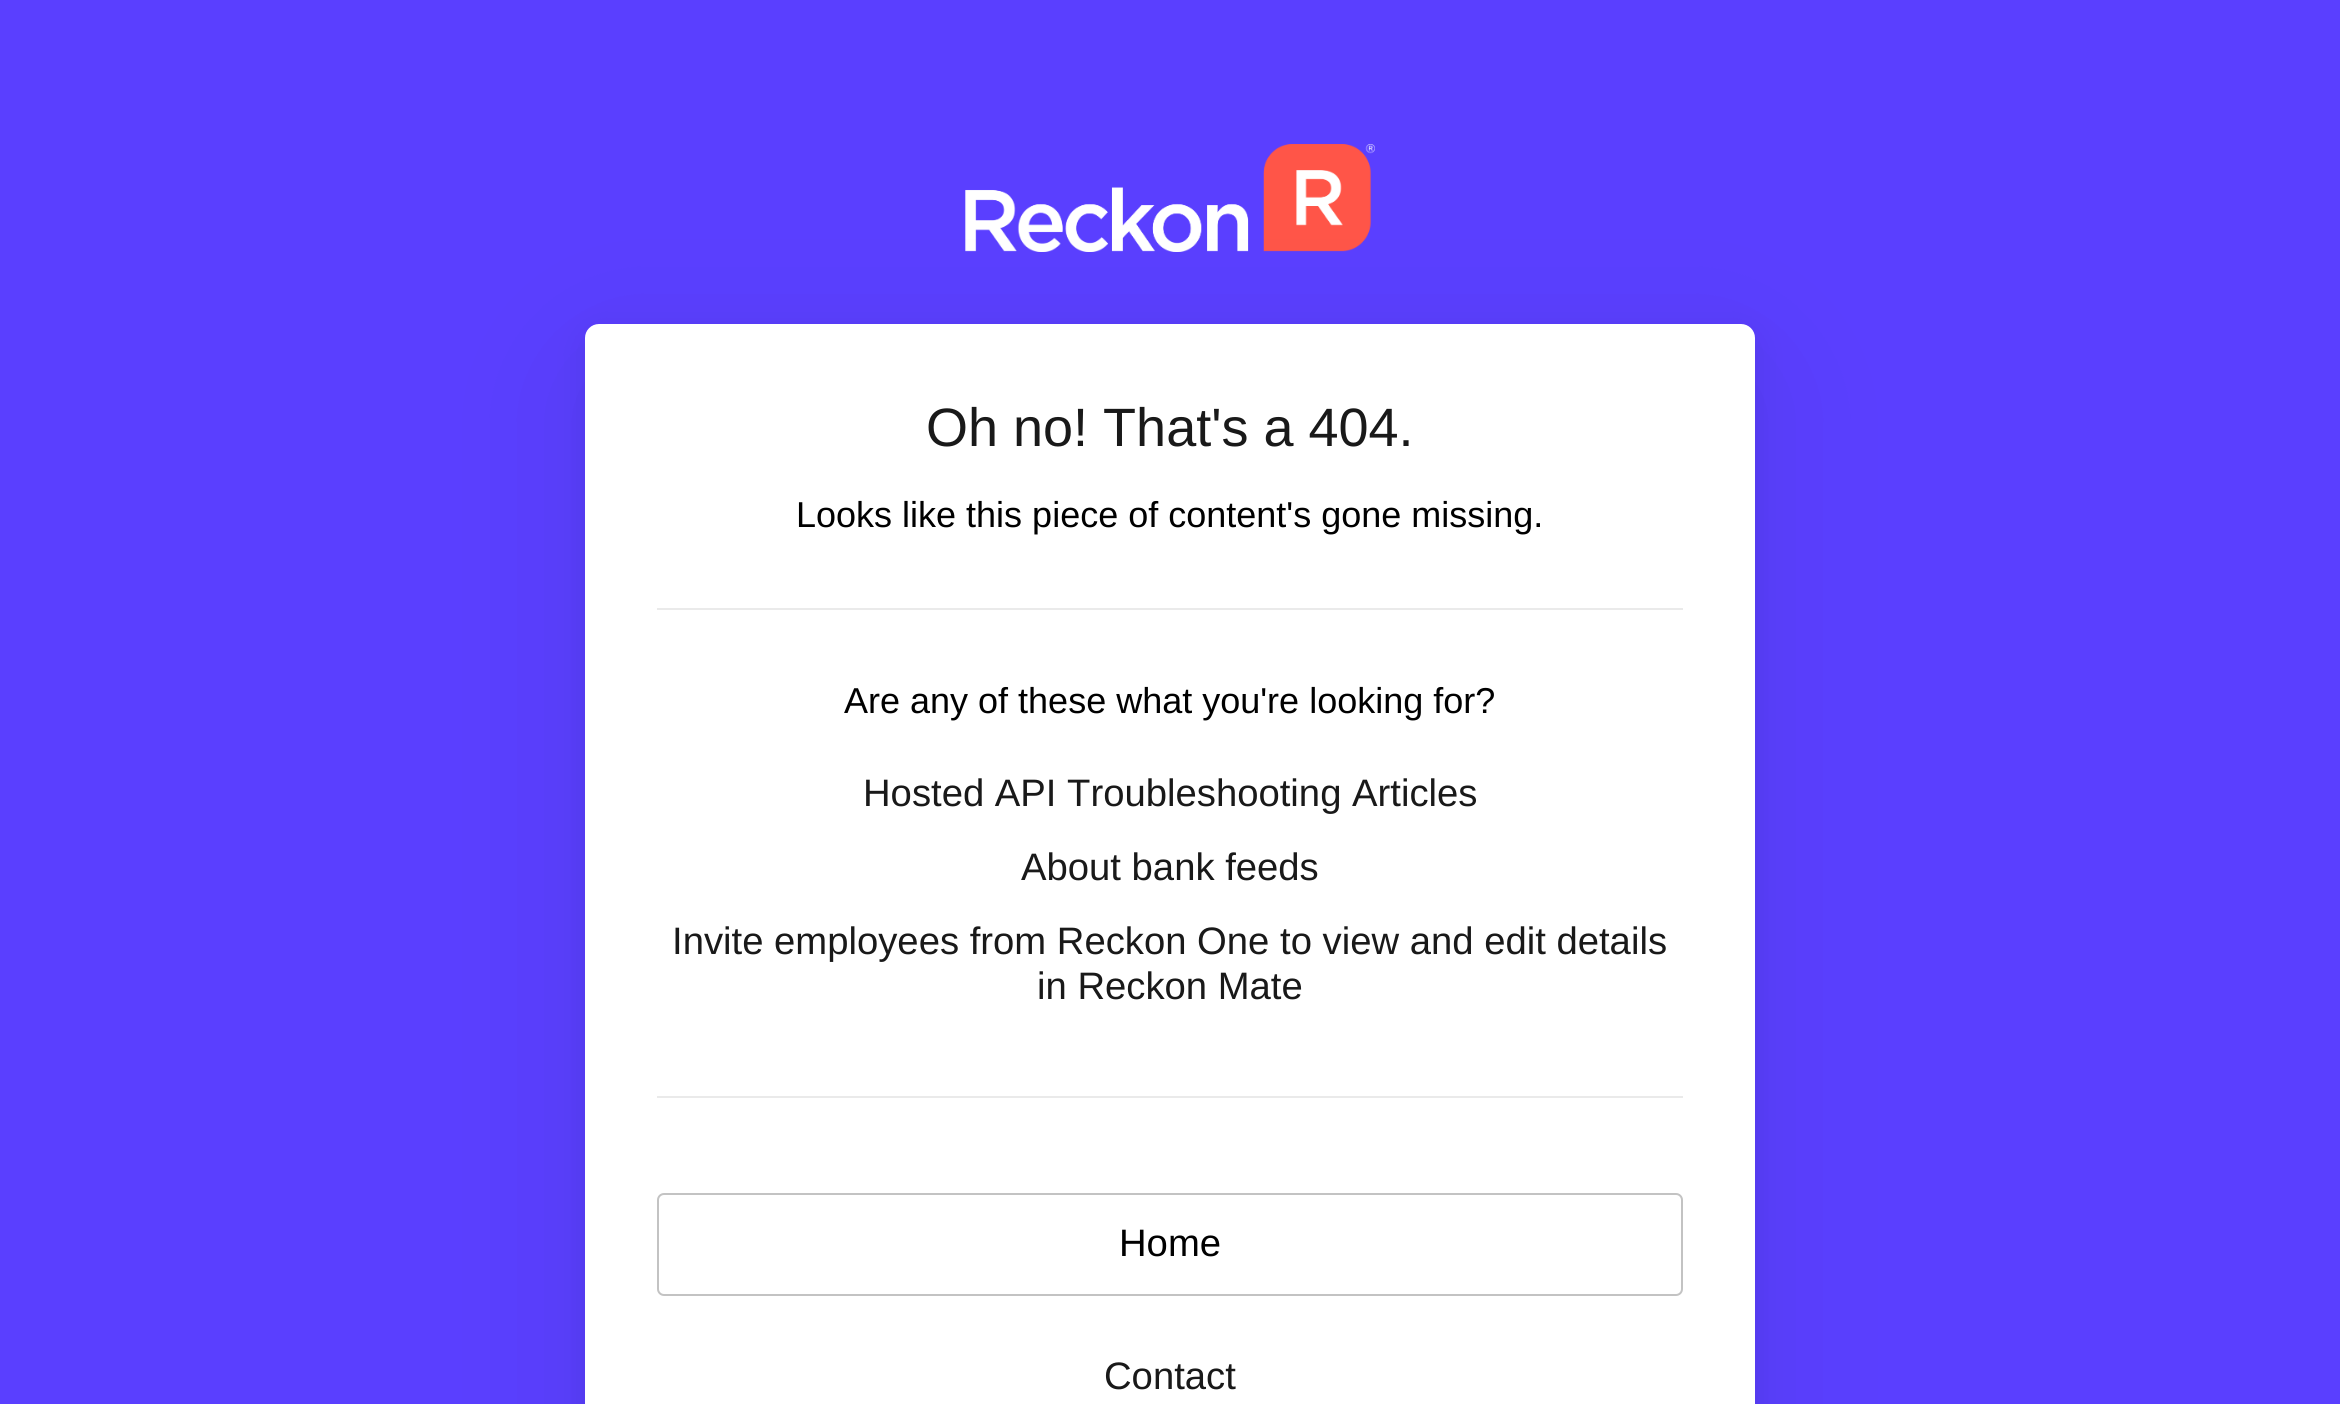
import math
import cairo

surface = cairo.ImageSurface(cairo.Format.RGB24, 2340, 1404)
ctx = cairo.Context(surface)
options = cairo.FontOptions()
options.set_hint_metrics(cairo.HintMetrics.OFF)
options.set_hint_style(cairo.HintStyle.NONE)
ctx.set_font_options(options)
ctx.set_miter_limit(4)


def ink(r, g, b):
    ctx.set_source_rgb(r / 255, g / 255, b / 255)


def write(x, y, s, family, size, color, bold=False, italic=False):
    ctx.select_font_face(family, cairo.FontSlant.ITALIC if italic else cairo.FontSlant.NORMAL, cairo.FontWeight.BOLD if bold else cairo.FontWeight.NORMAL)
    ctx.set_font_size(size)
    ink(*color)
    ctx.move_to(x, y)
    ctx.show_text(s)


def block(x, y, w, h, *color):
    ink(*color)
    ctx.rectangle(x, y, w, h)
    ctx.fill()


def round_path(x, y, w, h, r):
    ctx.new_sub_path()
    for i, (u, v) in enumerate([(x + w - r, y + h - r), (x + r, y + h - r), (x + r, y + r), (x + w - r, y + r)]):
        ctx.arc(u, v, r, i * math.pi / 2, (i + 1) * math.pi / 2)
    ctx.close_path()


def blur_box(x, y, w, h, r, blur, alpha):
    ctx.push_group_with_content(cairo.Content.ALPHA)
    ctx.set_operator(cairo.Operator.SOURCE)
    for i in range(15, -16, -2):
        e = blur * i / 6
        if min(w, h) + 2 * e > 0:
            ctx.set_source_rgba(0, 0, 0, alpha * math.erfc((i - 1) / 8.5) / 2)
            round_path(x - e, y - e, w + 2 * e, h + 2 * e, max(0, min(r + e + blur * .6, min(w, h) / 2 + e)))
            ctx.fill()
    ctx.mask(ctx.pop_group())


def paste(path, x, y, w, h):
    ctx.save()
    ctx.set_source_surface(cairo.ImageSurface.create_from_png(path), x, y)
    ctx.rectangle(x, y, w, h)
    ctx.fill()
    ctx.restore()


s1 = dict(family="Liberation Sans", size=54, color=(25, 25, 25))
s2 = dict(family="Liberation Sans", size=36, color=(0, 0, 0))
s3 = dict(family="Liberation Sans", size=38.25, color=(25, 25, 25))
s4 = dict(family="Liberation Sans", size=38.25, color=(0, 0, 0))

ink(90, 63, 255)
ctx.paint()
paste("pic1.png", 965, 144, 410, 108)
ink(0, 0, 0)
blur_box(585, 362, 1170, 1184, 14, 82, 0.07)
blur_box(585, 333, 1170, 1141, 14, 18.5, 0.06)
ink(255, 255, 255)
round_path(585, 324, 1170, 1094, 14)
ctx.fill()
write(926, 446, "Oh no! That's a 404.", **s1)
write(796, 527, "Looks like this piece of content's gone missing.", **s2)
block(657, 608, 1026, 2, 234, 234, 234)
write(844, 713, "Are any of these what you're looking for?", **s2)
write(863, 806, "Hosted API Troubleshooting Articles", **s3)
write(1021, 880, "About bank feeds", **s3)
write(672, 954, "Invite employees from Reckon One to view and edit details", **s3)
write(1037, 999, "in Reckon Mate", **s3)
block(657, 1096, 1026, 2, 234, 234, 234)
round_path(658, 1194, 1024, 101, 6)
ink(195, 195, 195)
ctx.stroke()
write(1119, 1256, "Home", **s4)
write(1104, 1389, "Contact", **s3)
surface.write_to_png("screenshot.png")
